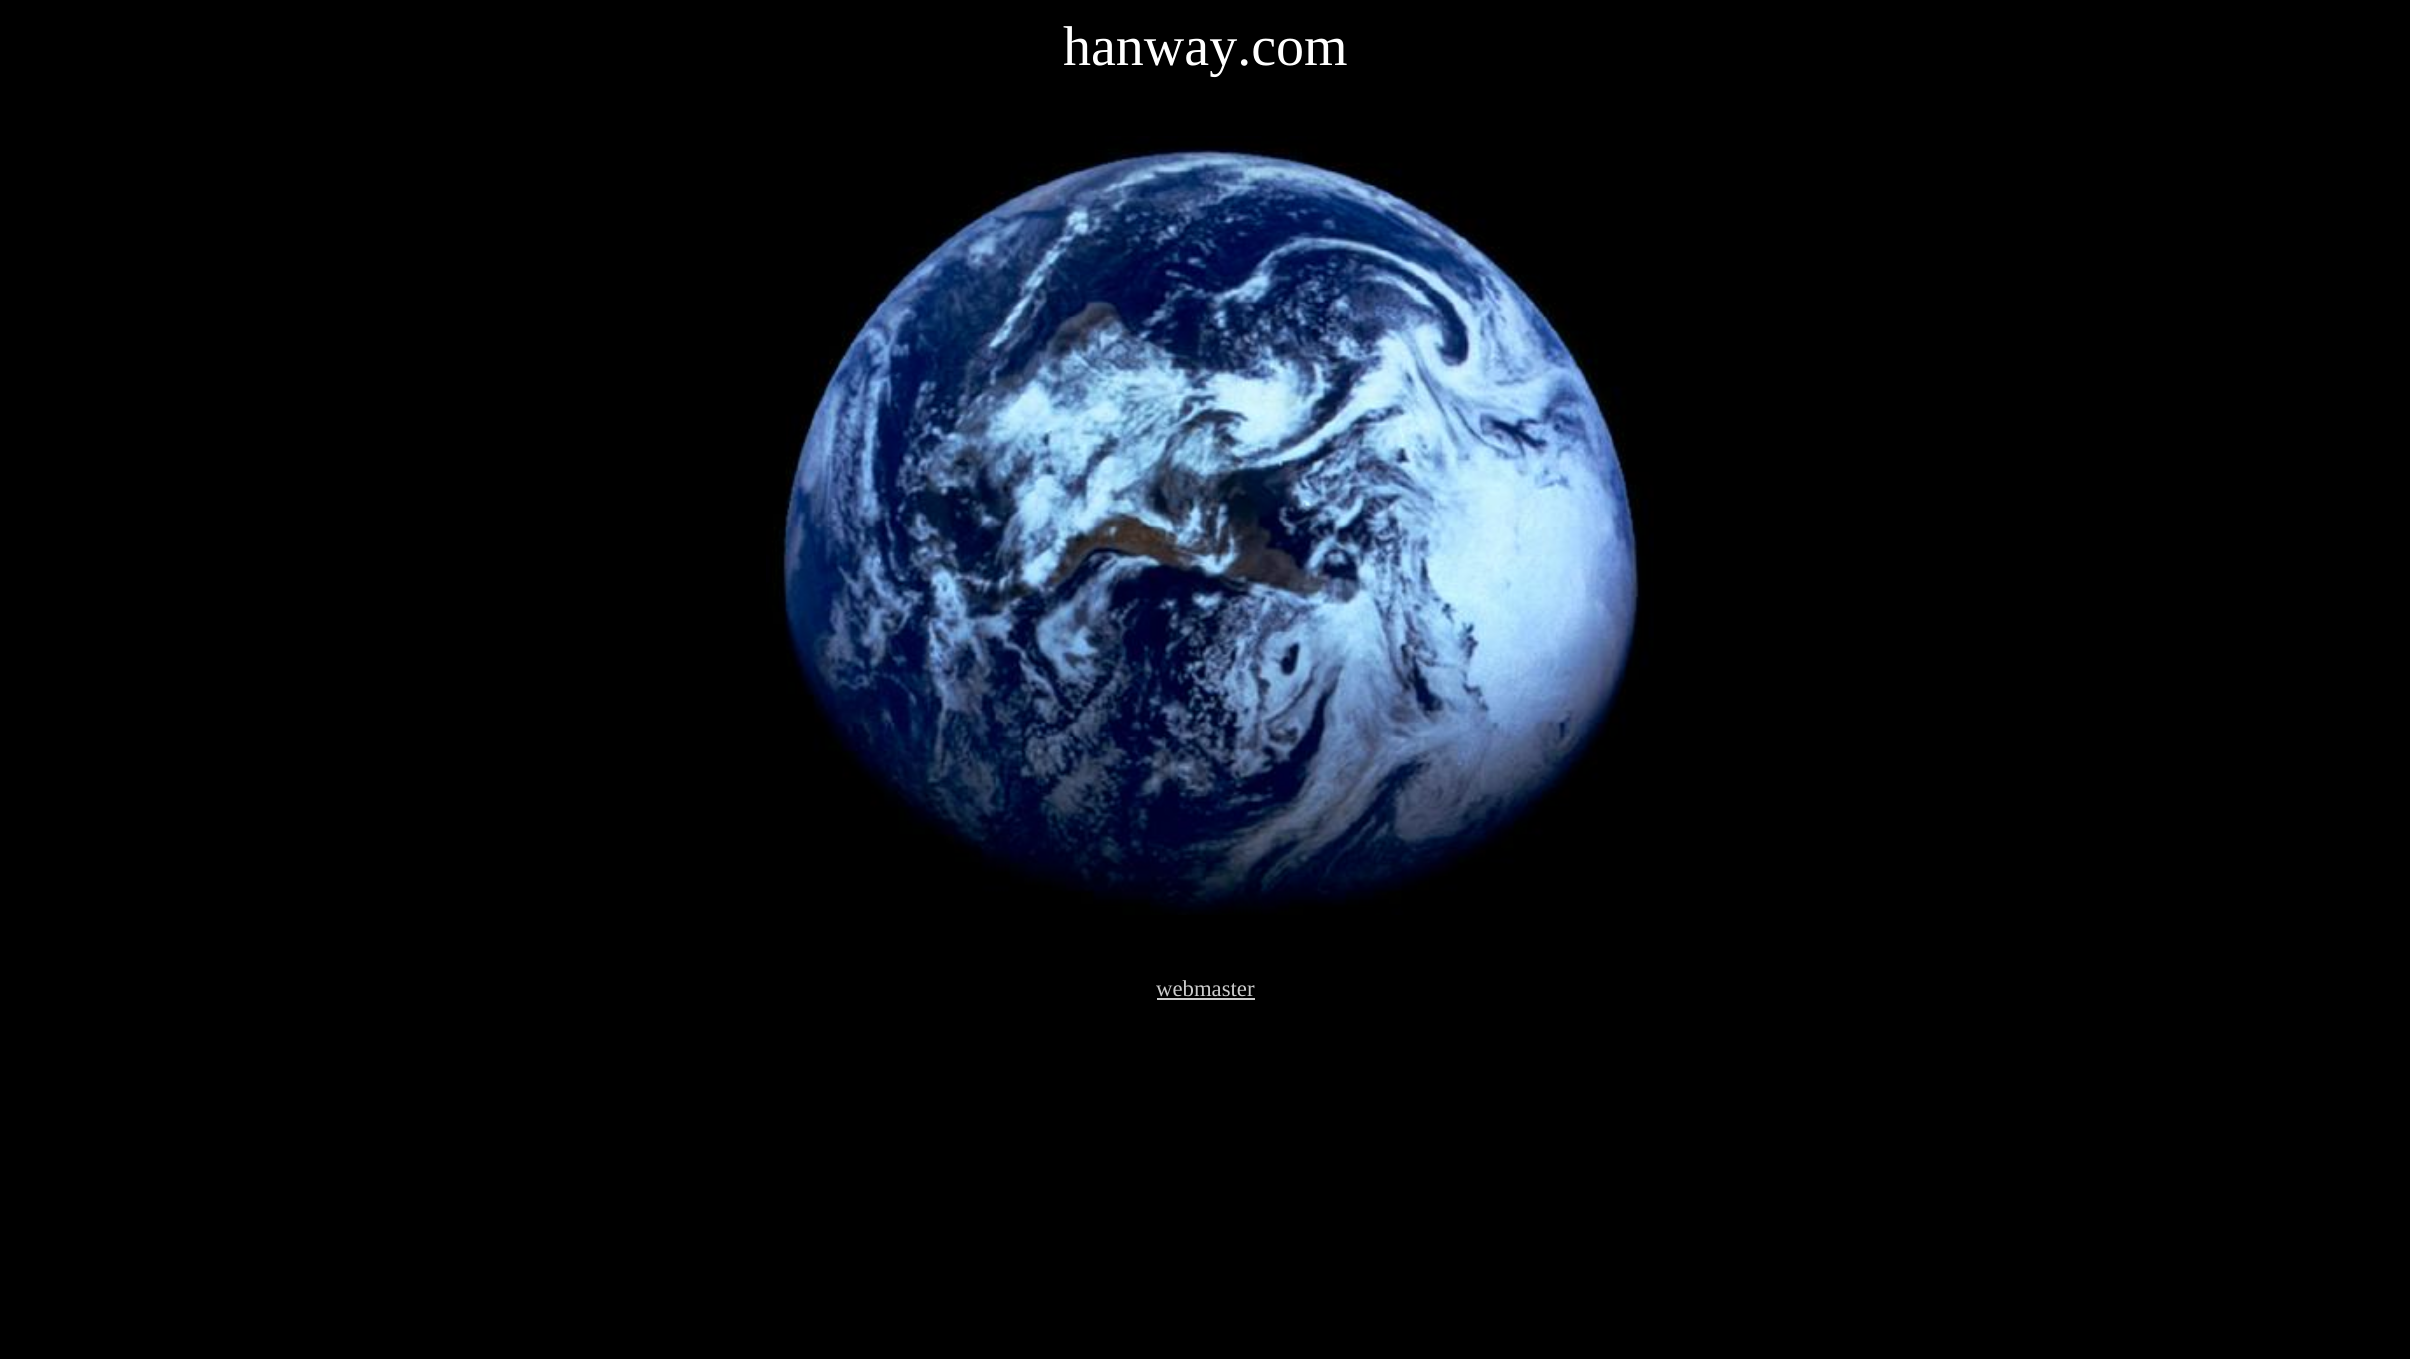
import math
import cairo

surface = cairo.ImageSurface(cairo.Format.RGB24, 2410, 1359)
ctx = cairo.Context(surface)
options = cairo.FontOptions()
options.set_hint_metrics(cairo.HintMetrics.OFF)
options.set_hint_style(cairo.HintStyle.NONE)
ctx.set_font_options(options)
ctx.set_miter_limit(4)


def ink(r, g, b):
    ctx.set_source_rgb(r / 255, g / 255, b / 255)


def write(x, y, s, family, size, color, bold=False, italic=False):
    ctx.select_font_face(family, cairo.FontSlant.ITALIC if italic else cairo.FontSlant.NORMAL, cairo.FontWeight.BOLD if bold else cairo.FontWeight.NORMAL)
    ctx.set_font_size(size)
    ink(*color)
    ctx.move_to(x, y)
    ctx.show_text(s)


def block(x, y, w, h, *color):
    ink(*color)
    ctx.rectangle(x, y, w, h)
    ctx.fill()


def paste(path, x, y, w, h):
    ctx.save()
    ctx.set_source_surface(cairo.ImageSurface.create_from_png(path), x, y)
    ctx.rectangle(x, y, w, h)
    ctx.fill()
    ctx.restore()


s1 = dict(family="Liberation Serif", size=56, color=(255, 255, 255))
s2 = dict(family="Liberation Serif", size=22.75, color=(204, 204, 204))

ink(0, 0, 0)
ctx.paint()
write(1063, 65, "hanway.com", **s1)
paste("pic1.png", 766, 136, 888, 779)
write(1156, 996, "webmaster", **s2)
block(1157, 998, 98, 2, 204, 204, 204)
surface.write_to_png("screenshot.png")
